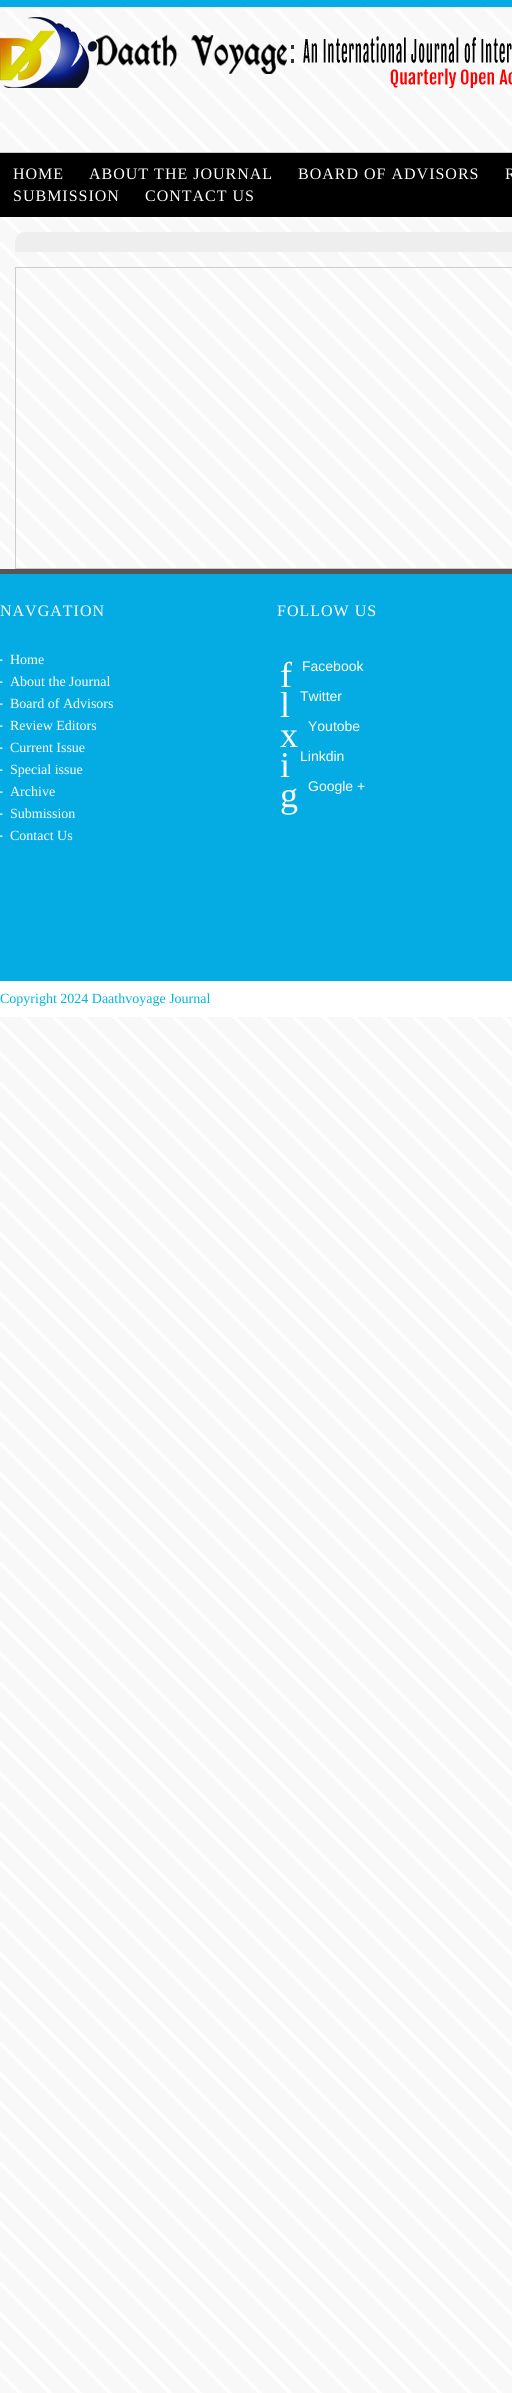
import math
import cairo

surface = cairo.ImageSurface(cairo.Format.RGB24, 512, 2393)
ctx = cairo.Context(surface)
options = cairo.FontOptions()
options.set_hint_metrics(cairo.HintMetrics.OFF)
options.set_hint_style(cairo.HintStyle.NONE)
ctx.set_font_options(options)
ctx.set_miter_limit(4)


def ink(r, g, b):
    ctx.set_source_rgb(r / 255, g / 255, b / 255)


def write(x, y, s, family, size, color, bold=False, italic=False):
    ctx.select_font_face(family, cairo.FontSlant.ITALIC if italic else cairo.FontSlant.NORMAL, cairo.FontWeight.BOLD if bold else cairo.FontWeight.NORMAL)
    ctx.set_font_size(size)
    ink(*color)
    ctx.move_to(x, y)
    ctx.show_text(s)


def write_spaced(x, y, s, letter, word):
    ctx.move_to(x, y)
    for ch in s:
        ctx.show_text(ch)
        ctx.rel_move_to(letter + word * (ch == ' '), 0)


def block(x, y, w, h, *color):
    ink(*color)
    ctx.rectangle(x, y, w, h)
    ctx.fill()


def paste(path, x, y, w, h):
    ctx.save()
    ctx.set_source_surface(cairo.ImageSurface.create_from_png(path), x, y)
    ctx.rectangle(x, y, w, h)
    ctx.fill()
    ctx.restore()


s1 = dict(family="Liberation Serif", size=14, color=(255, 255, 255))
s2 = dict(family="Liberation Serif", size=36, color=(255, 255, 255))
s3 = dict(family="Liberation Sans", size=14, color=(255, 255, 255))
s4 = dict(family="Liberation Serif", size=14, color=(0, 182, 220))

ink(255, 255, 255)
ctx.paint()
paste("pic1.png", 0, 7, 512, 2386)
block(0, 0, 512, 7, 5, 172, 227)
block(0, 152, 512, 1, 204, 204, 204)
paste("pic2.png", 0, 17, 512, 71)
block(0, 153, 512, 64, 0, 0, 0)
ctx.select_font_face("Liberation Serif")
ctx.set_font_size(16)
ink(255, 255, 255)
write_spaced(13, 179, "HOME", 1, 0)
write_spaced(89, 179, "ABOUT THE JOURNAL", 1, 0)
write_spaced(298, 179, "BOARD OF ADVISORS", 1, 0)
write_spaced(505, 179, "R", 1, 0)
write_spaced(13, 201, "SUBMISSION", 1, 0)
write_spaced(145, 201, "CONTACT US", 1, 0)
ink(238, 238, 238)
ctx.new_path()
ctx.move_to(25, 232)
ctx.line_to(512, 232)
ctx.curve_to(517.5, 232, 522, 236.5, 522, 242)
ctx.line_to(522, 252)
ctx.line_to(15, 252)
ctx.line_to(15, 242)
ctx.curve_to(15, 236.5, 19.5, 232, 25, 232)
ctx.close_path()
ctx.fill()
ctx.rectangle(15.5, 267.5, 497, 301)
ink(204, 204, 204)
ctx.set_line_width(1)
ctx.stroke()
block(0, 574, 512, 407, 5, 172, 227)
block(0, 569, 512, 5, 87, 87, 87)
ink(255, 255, 255)
write_spaced(0, 616, "NAVGATION", 1, 0)
paste("pic3.png", 0, 659, 3, 2)
write(10, 664, "Home", **s1)
paste("pic3.png", 0, 681, 3, 2)
write(10, 686, "About the Journal", **s1)
paste("pic3.png", 0, 703, 3, 2)
write(10, 708, "Board of Advisors", **s1)
paste("pic3.png", 0, 725, 3, 2)
write(10, 730, "Review Editors", **s1)
paste("pic3.png", 0, 747, 3, 2)
write(10, 752, "Current Issue", **s1)
paste("pic3.png", 0, 769, 3, 2)
write(10, 774, "Special issue", **s1)
paste("pic3.png", 0, 791, 3, 2)
write(10, 796, "Archive", **s1)
paste("pic3.png", 0, 813, 3, 2)
write(10, 818, "Submission", **s1)
paste("pic3.png", 0, 835, 3, 2)
write(10, 840, "Contact Us", **s1)
ctx.set_font_size(16)
write_spaced(277, 616, "FOLLOW US", 1, 0)
write(280, 687, "f", **s2)
write(302, 671, "Facebook", **s3)
write(280, 717, "l", **s2)
write(300, 701, "Twitter", **s3)
write(308, 731, "Youtobe", **s3)
write(280, 747, "x", **s2)
write(280, 777, "i", **s2)
write(300, 761, "Linkdin", **s3)
write(280, 807, "g", **s2)
write(308, 791, "Google +", **s3)
block(0, 981, 512, 36, 255, 255, 255)
write(0, 1003, "Copyright 2024 Daathvoyage Journal", **s4)
surface.write_to_png("screenshot.png")
